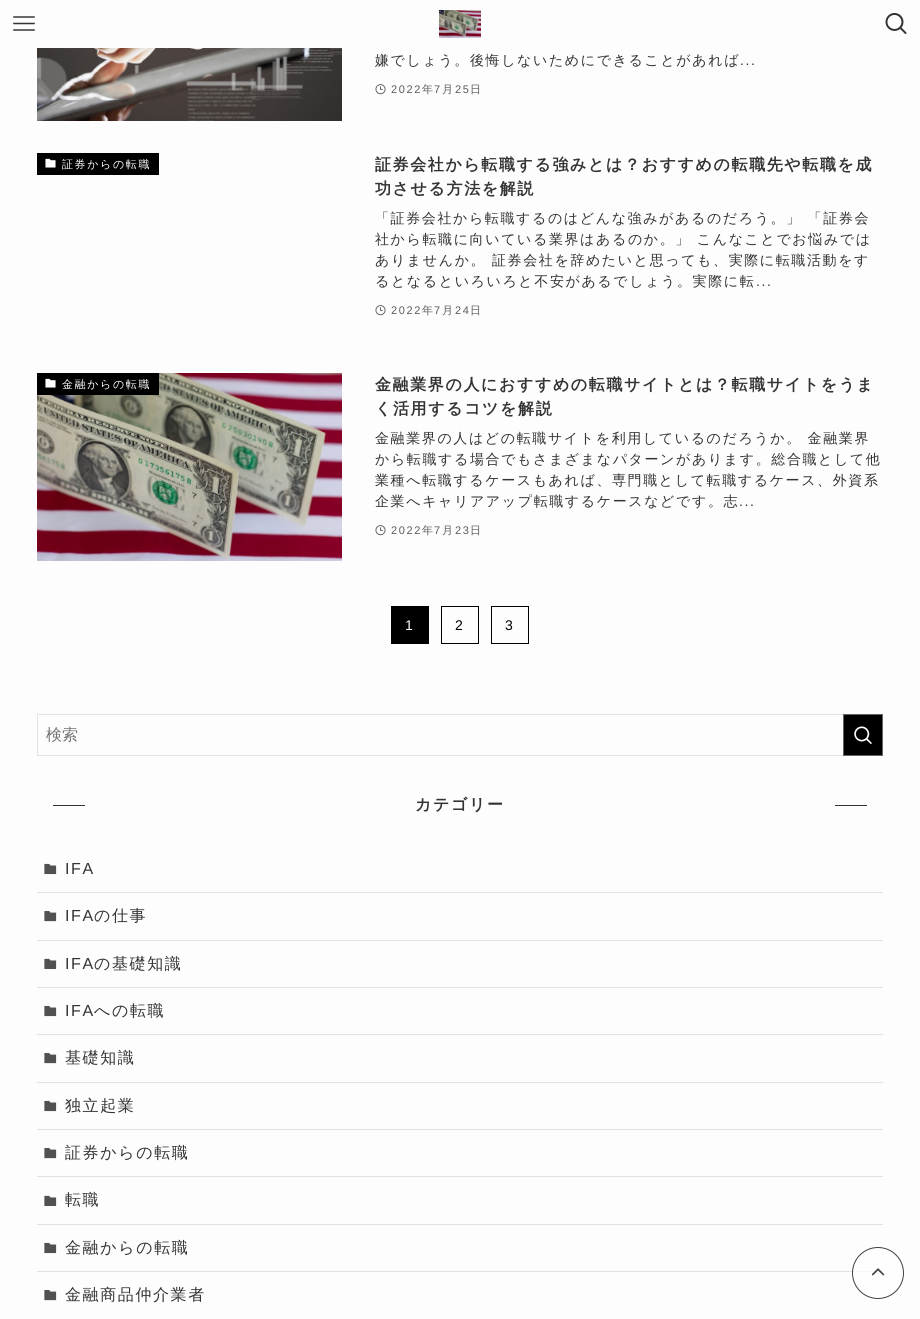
import math
import cairo

surface = cairo.ImageSurface(cairo.Format.RGB24, 920, 1319)
ctx = cairo.Context(surface)
options = cairo.FontOptions()
options.set_hint_metrics(cairo.HintMetrics.OFF)
options.set_hint_style(cairo.HintStyle.NONE)
ctx.set_font_options(options)
ctx.set_miter_limit(4)


def ink(r, g, b):
    ctx.set_source_rgb(r / 255, g / 255, b / 255)


def write(x, y, s, family, size, color, bold=False, italic=False):
    ctx.select_font_face(family, cairo.FontSlant.ITALIC if italic else cairo.FontSlant.NORMAL, cairo.FontWeight.BOLD if bold else cairo.FontWeight.NORMAL)
    ctx.set_font_size(size)
    ink(*color)
    ctx.move_to(x, y)
    ctx.show_text(s)


def write_spaced(x, y, s, letter, word):
    ctx.move_to(x, y)
    for ch in s:
        ctx.show_text(ch)
        ctx.rel_move_to(letter + word * (ch == ' '), 0)


def block(x, y, w, h, *color):
    ink(*color)
    ctx.rectangle(x, y, w, h)
    ctx.fill()


def paste(path, x, y, w, h):
    ctx.save()
    ctx.set_source_surface(cairo.ImageSurface.create_from_png(path), x, y)
    ctx.rectangle(x, y, w, h)
    ctx.fill()
    ctx.restore()


s1 = dict(family="WenQuanYi Zen Hei Medium", size=16, color=(117, 117, 117))

ink(253, 253, 253)
ctx.paint()
paste("pic1.png", 13, 16, 22, 15)
paste("pic2.png", 439, 10, 42, 28)
paste("pic3.png", 885, 13, 22, 21)
paste("pic4.png", 37, 48, 305, 73)
ctx.select_font_face("WenQuanYi Zen Hei Medium")
ctx.set_font_size(14)
ink(51, 51, 51)
write_spaced(375, 65, "嫌でしょう。後悔しないためにできることがあれば", 1.6, 0)
ctx.select_font_face("Liberation Sans")
write_spaced(740, 65, "...", 1.6, 0)
paste("pic5.png", 375, 84, 11, 11)
ctx.set_font_size(11)
ink(91, 91, 91)
write_spaced(391, 93, "2022", 1.6, 0)
ctx.select_font_face("WenQuanYi Zen Hei Medium")
write_spaced(422, 93, "年", 1.6, 0)
ctx.select_font_face("Liberation Sans")
write_spaced(434, 93, "7", 1.6, 0)
ctx.select_font_face("WenQuanYi Zen Hei Medium")
write_spaced(442, 93, "月", 1.6, 0)
ctx.select_font_face("Liberation Sans")
write_spaced(455, 93, "25", 1.6, 0)
ctx.select_font_face("WenQuanYi Zen Hei Medium")
write_spaced(470, 93, "日", 1.6, 0)
block(37, 153, 122, 22, 0, 0, 0)
paste("pic6.png", 45, 158, 11, 10)
ink(255, 255, 255)
write_spaced(62, 168, "証券からの転職", 1.6, 0)
ctx.select_font_face("WenQuanYi Zen Hei", cairo.FontSlant.NORMAL, cairo.FontWeight.BOLD)
ctx.set_font_size(16)
ink(51, 51, 51)
write_spaced(375, 170, "証券会社から転職する強みとは？おすすめの転職先や転職を成", 1.6, 0)
write_spaced(375, 194, "功させる方法を解説", 1.6, 0)
ctx.select_font_face("WenQuanYi Zen Hei Medium")
ctx.set_font_size(14)
write_spaced(375, 223, "「証券会社から転職するのはどんな強みがあるのだろう。」 「証券会", 1.6, 0)
write_spaced(375, 244, "社から転職に向いている業界はあるのか。」 こんなことでお悩みでは", 1.6, 0)
write_spaced(375, 265, "ありませんか。 証券会社を辞めたいと思っても、実際に転職活動をす", 1.6, 0)
write_spaced(375, 286, "るとなるといろいろと不安があるでしょう。実際に転", 1.6, 0)
ctx.select_font_face("Liberation Sans")
write_spaced(756, 286, "...", 1.6, 0)
paste("pic5.png", 375, 305, 11, 11)
ctx.set_font_size(11)
ink(91, 91, 91)
write_spaced(391, 314, "2022", 1.6, 0)
ctx.select_font_face("WenQuanYi Zen Hei Medium")
write_spaced(422, 314, "年", 1.6, 0)
ctx.select_font_face("Liberation Sans")
write_spaced(434, 314, "7", 1.6, 0)
ctx.select_font_face("WenQuanYi Zen Hei Medium")
write_spaced(442, 314, "月", 1.6, 0)
ctx.select_font_face("Liberation Sans")
write_spaced(455, 314, "24", 1.6, 0)
ctx.select_font_face("WenQuanYi Zen Hei Medium")
write_spaced(470, 314, "日", 1.6, 0)
paste("pic7.png", 37, 373, 305, 188)
block(37, 373, 122, 22, 0, 0, 0)
paste("pic6.png", 45, 378, 11, 10)
ink(255, 255, 255)
write_spaced(62, 388, "金融からの転職", 1.6, 0)
ctx.select_font_face("WenQuanYi Zen Hei", cairo.FontSlant.NORMAL, cairo.FontWeight.BOLD)
ctx.set_font_size(16)
ink(51, 51, 51)
write_spaced(375, 390, "金融業界の人におすすめの転職サイトとは？転職サイトをうま", 1.6, 0)
write_spaced(375, 414, "く活用するコツを解説", 1.6, 0)
ctx.select_font_face("WenQuanYi Zen Hei Medium")
ctx.set_font_size(14)
write_spaced(375, 443, "金融業界の人はどの転職サイトを利用しているのだろうか。 金融業界", 1.6, 0)
write_spaced(375, 464, "から転職する場合でもさまざまなパターンがあります。総合職として他", 1.6, 0)
write_spaced(375, 485, "業種へ転職するケースもあれば、専門職として転職するケース、外資系", 1.6, 0)
write_spaced(375, 506, "企業へキャリアアップ転職するケースなどです。志", 1.6, 0)
ctx.select_font_face("Liberation Sans")
write_spaced(739, 506, "...", 1.6, 0)
paste("pic5.png", 375, 525, 11, 11)
ctx.set_font_size(11)
ink(91, 91, 91)
write_spaced(391, 534, "2022", 1.6, 0)
ctx.select_font_face("WenQuanYi Zen Hei Medium")
write_spaced(422, 534, "年", 1.6, 0)
ctx.select_font_face("Liberation Sans")
write_spaced(434, 534, "7", 1.6, 0)
ctx.select_font_face("WenQuanYi Zen Hei Medium")
write_spaced(442, 534, "月", 1.6, 0)
ctx.select_font_face("Liberation Sans")
write_spaced(455, 534, "23", 1.6, 0)
ctx.select_font_face("WenQuanYi Zen Hei Medium")
write_spaced(470, 534, "日", 1.6, 0)
block(391, 606, 38, 38, 0, 0, 0)
ctx.select_font_face("Liberation Sans")
ctx.set_font_size(14)
ink(255, 255, 255)
write_spaced(405, 630, "1", 1.6, 0)
ctx.rectangle(441.5, 606.5, 37, 37)
ink(0, 0, 0)
ctx.set_line_width(1)
ctx.stroke()
write_spaced(455, 630, "2", 1.6, 0)
ctx.rectangle(491.5, 606.5, 37, 37)
ctx.stroke()
write_spaced(505, 630, "3", 1.6, 0)
ctx.rectangle(37.5, 714.5, 845, 41)
ink(227, 227, 227)
ctx.stroke()
write(46, 740, "検索", **s1)
ink(0, 0, 0)
ctx.rectangle(843.5, 714.5, 39, 41)
ctx.fill_preserve()
ink(100, 100, 100)
ctx.stroke()
paste("pic8.png", 854, 726, 18, 18)
block(53, 805, 32, 1, 51, 51, 51)
ctx.select_font_face("WenQuanYi Zen Hei", cairo.FontSlant.NORMAL, cairo.FontWeight.BOLD)
write_spaced(415, 810, "カテゴリー", 1.6, 0)
block(835, 805, 32, 1, 51, 51, 51)
block(37, 892, 846, 1, 226, 226, 226)
paste("pic9.png", 44, 863, 13, 12)
ctx.select_font_face("Liberation Sans")
ink(51, 51, 51)
write_spaced(65, 874, "IFA", 1.6, 0)
block(37, 940, 846, 1, 226, 226, 226)
paste("pic10.png", 44, 911, 13, 11)
ink(51, 51, 51)
write_spaced(65, 921, "IFA", 1.6, 0)
ctx.select_font_face("WenQuanYi Zen Hei Medium")
write_spaced(94, 921, "の仕事", 1.6, 0)
block(37, 987, 846, 1, 226, 226, 226)
paste("pic11.png", 44, 958, 13, 11)
ctx.select_font_face("Liberation Sans")
ink(51, 51, 51)
write_spaced(65, 969, "IFA", 1.6, 0)
ctx.select_font_face("WenQuanYi Zen Hei Medium")
write_spaced(94, 969, "の基礎知識", 1.6, 0)
block(37, 1034, 846, 1, 226, 226, 226)
paste("pic12.png", 44, 1005, 13, 12)
ctx.select_font_face("Liberation Sans")
ink(51, 51, 51)
write_spaced(65, 1016, "IFA", 1.6, 0)
ctx.select_font_face("WenQuanYi Zen Hei Medium")
write_spaced(94, 1016, "への転職", 1.6, 0)
block(37, 1082, 846, 1, 226, 226, 226)
paste("pic13.png", 44, 1053, 13, 11)
ink(51, 51, 51)
write_spaced(65, 1063, "基礎知識", 1.6, 0)
block(37, 1129, 846, 1, 226, 226, 226)
paste("pic14.png", 44, 1100, 13, 12)
ink(51, 51, 51)
write_spaced(65, 1111, "独立起業", 1.6, 0)
block(37, 1176, 846, 1, 226, 226, 226)
paste("pic15.png", 44, 1148, 13, 11)
ink(51, 51, 51)
write_spaced(65, 1158, "証券からの転職", 1.6, 0)
block(37, 1224, 846, 1, 226, 226, 226)
paste("pic16.png", 44, 1195, 13, 11)
ink(51, 51, 51)
write_spaced(65, 1205, "転職", 1.6, 0)
block(37, 1271, 846, 1, 226, 226, 226)
paste("pic17.png", 44, 1242, 13, 12)
ink(51, 51, 51)
write_spaced(65, 1253, "金融からの転職", 1.6, 0)
paste("pic18.png", 44, 1290, 13, 11)
write_spaced(65, 1300, "金融商品仲介業者", 1.6, 0)
ctx.set_source_rgba(1, 1, 1, 0.75)
ctx.new_path()
ctx.arc(878, 1273, 26, 0, 2 * math.pi)
ctx.fill()
ctx.arc(878, 1273, 25.5, 0, 2 * math.pi)
ctx.set_source_rgba(0, 0, 0, 0.75)
ctx.stroke()
paste("pic19.png", 871, 1268, 14, 8)
surface.write_to_png("screenshot.png")
